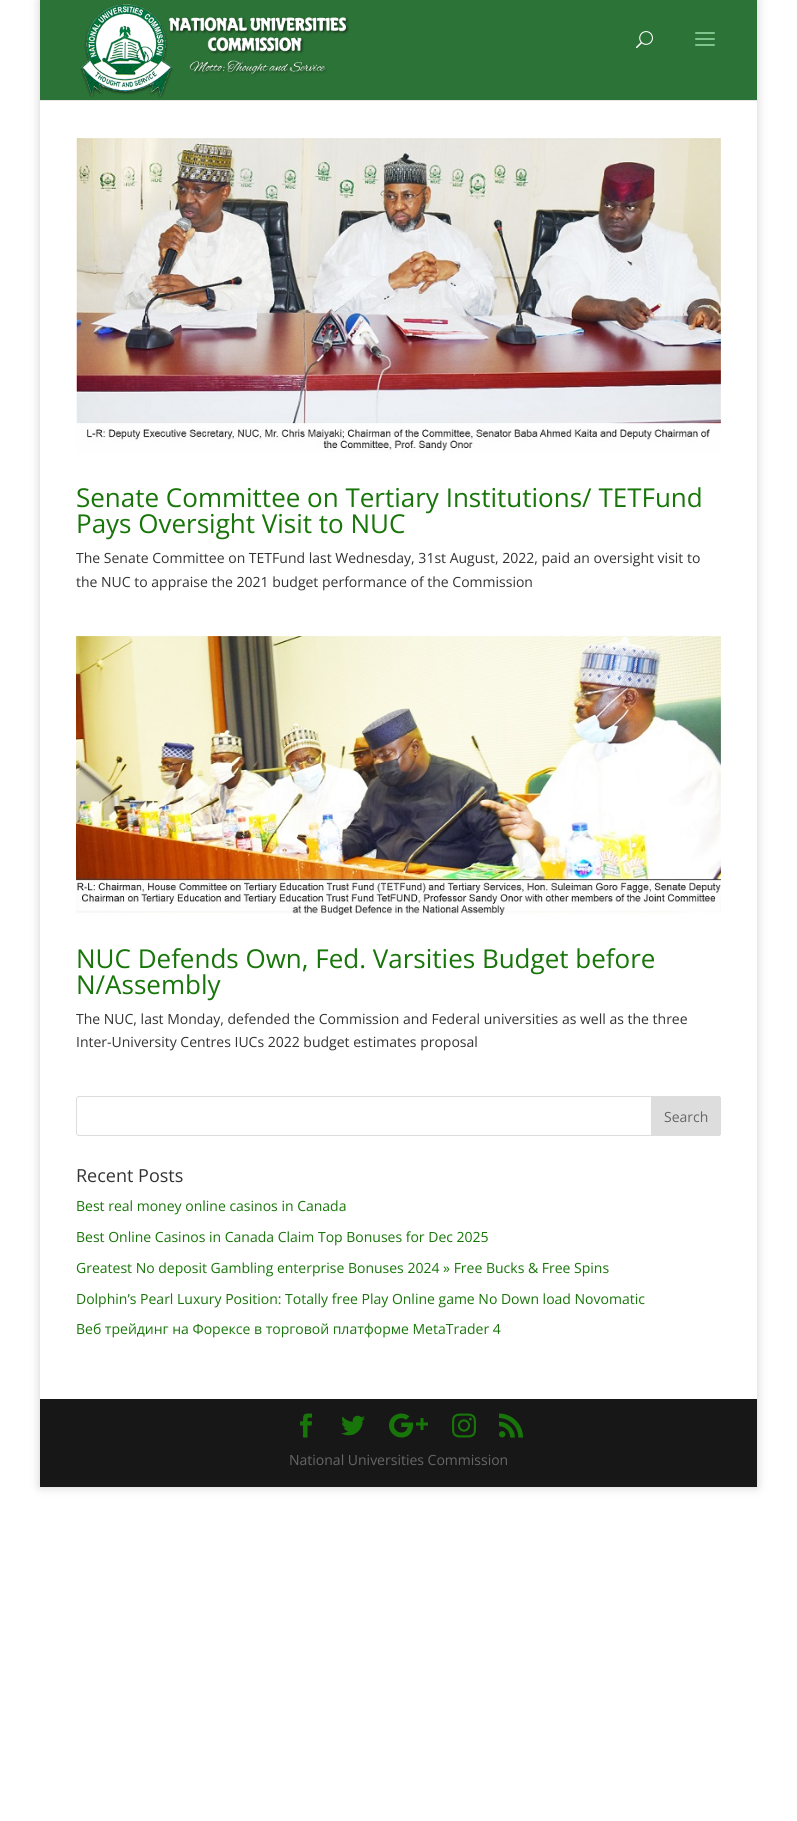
import math
import cairo

surface = cairo.ImageSurface(cairo.Format.RGB24, 797, 1821)
ctx = cairo.Context(surface)
options = cairo.FontOptions()
options.set_hint_metrics(cairo.HintMetrics.OFF)
options.set_hint_style(cairo.HintStyle.NONE)
ctx.set_font_options(options)
ctx.set_miter_limit(4)


def ink(r, g, b):
    ctx.set_source_rgb(r / 255, g / 255, b / 255)


def write(x, y, s, family, size, color, bold=False, italic=False):
    ctx.select_font_face(family, cairo.FontSlant.ITALIC if italic else cairo.FontSlant.NORMAL, cairo.FontWeight.BOLD if bold else cairo.FontWeight.NORMAL)
    ctx.set_font_size(size)
    ink(*color)
    ctx.move_to(x, y)
    ctx.show_text(s)


def block(x, y, w, h, *color):
    ink(*color)
    ctx.rectangle(x, y, w, h)
    ctx.fill()


def round_path(x, y, w, h, r):
    ctx.new_sub_path()
    for i, (u, v) in enumerate([(x + w - r, y + h - r), (x + r, y + h - r), (x + r, y + r), (x + w - r, y + r)]):
        ctx.arc(u, v, r, i * math.pi / 2, (i + 1) * math.pi / 2)
    ctx.close_path()


def blur_box(x, y, w, h, r, blur, alpha):
    ctx.push_group_with_content(cairo.Content.ALPHA)
    ctx.set_operator(cairo.Operator.SOURCE)
    for i in range(15, -16, -2):
        e = blur * i / 6
        if min(w, h) + 2 * e > 0:
            ctx.set_source_rgba(0, 0, 0, alpha * math.erfc((i - 1) / 8.5) / 2)
            round_path(x - e, y - e, w + 2 * e, h + 2 * e, max(0, min(r + e + blur * .6, min(w, h) / 2 + e)))
            ctx.fill()
    ctx.mask(ctx.pop_group())


def paste(path, x, y, w, h):
    ctx.save()
    ctx.set_source_surface(cairo.ImageSurface.create_from_png(path), x, y)
    ctx.rectangle(x, y, w, h)
    ctx.fill()
    ctx.restore()


s1 = dict(family="Open Sans", size=26, color=(24, 117, 9))
s2 = dict(family="Open Sans", size=14, color=(51, 51, 51))
s3 = dict(family="Open Sans", size=14, color=(102, 102, 102))
s4 = dict(family="Open Sans", size=18, color=(51, 51, 51))
s5 = dict(family="Open Sans", size=14, color=(24, 117, 9))

ink(255, 255, 255)
ctx.paint()
ctx.save()
ctx.set_fill_rule(cairo.FillRule.EVEN_ODD)
ctx.new_path()
ctx.move_to(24, 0)
ctx.line_to(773, 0)
ctx.line_to(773, 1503)
ctx.line_to(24, 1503)
ctx.close_path()
ctx.move_to(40, 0)
ctx.line_to(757, 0)
ctx.line_to(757, 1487)
ctx.line_to(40, 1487)
ctx.close_path()
ctx.clip()
ink(0, 0, 0)
blur_box(40, 0, 717, 1487, 0, 5, 0.2)
ctx.restore()
block(40, 100, 717, 1, 230, 230, 230)
block(40, 0, 717, 100, 44, 115, 55)
paste("pic1.png", 80, 3, 269, 95)
paste("pic2.png", 636, 31, 17, 18)
paste("pic3.png", 695, 32, 20, 14)
paste("pic4.png", 76, 138, 645, 315)
write(76, 507, "Senate Committee on Tertiary Institutions/ TETFund", **s1)
write(76, 533, "Pays Oversight Visit to NUC", **s1)
write(76, 563, "The Senate Committee on TETFund last Wednesday, 31st August, 2022, paid an oversight visit to", **s2)
write(76, 587, "the NUC to appraise the 2021 budget performance of the Commission", **s2)
paste("pic5.png", 76, 636, 645, 279)
write(76, 968, "NUC Defends Own, Fed. Varsities Budget before", **s1)
write(76, 994, "N/Assembly", **s1)
write(76, 1024, "The NUC, last Monday, defended the Commission and Federal universities as well as the three", **s2)
write(76, 1047, "Inter-University Centres IUCs 2022 budget estimates proposal", **s2)
round_path(76.5, 1096.5, 644, 39, 2.5)
ink(221, 221, 221)
ctx.set_line_width(1)
ctx.stroke()
ctx.new_path()
ctx.move_to(651.5, 1096.5)
ctx.line_to(718, 1096.5)
ctx.curve_to(719.5, 1096.5, 720.5, 1097.5, 720.5, 1099)
ctx.line_to(720.5, 1133)
ctx.curve_to(720.5, 1134.5, 719.5, 1135.5, 718, 1135.5)
ctx.line_to(651.5, 1135.5)
ctx.close_path()
ctx.fill_preserve()
ctx.stroke()
write(664, 1122, "Search", **s3)
write(76, 1182, "Recent Posts", **s4)
write(76, 1211, "Best real money online casinos in Canada", **s5)
write(76, 1242, "Best Online Casinos in Canada Claim Top Bonuses for Dec 2025", **s5)
write(76, 1273, "Greatest No deposit Gambling enterprise Bonuses 2024 » Free Bucks & Free Spins", **s5)
write(76, 1304, "Dolphin’s Pearl Luxury Position: Totally free Play Online game No Down load Novomatic", **s5)
write(76, 1334, "Веб трейдинг на Форексе в торговой платформе MetaTrader 4", **s5)
block(40, 1399, 717, 88, 23, 23, 23)
paste("pic6.png", 300, 1413, 12, 25)
paste("pic7.png", 341, 1415, 24, 21)
paste("pic8.png", 389, 1413, 39, 25)
paste("pic9.png", 452, 1413, 24, 25)
paste("pic10.png", 499, 1413, 24, 25)
write(289, 1465, "National Universities Commission", **s3)
surface.write_to_png("screenshot.png")
